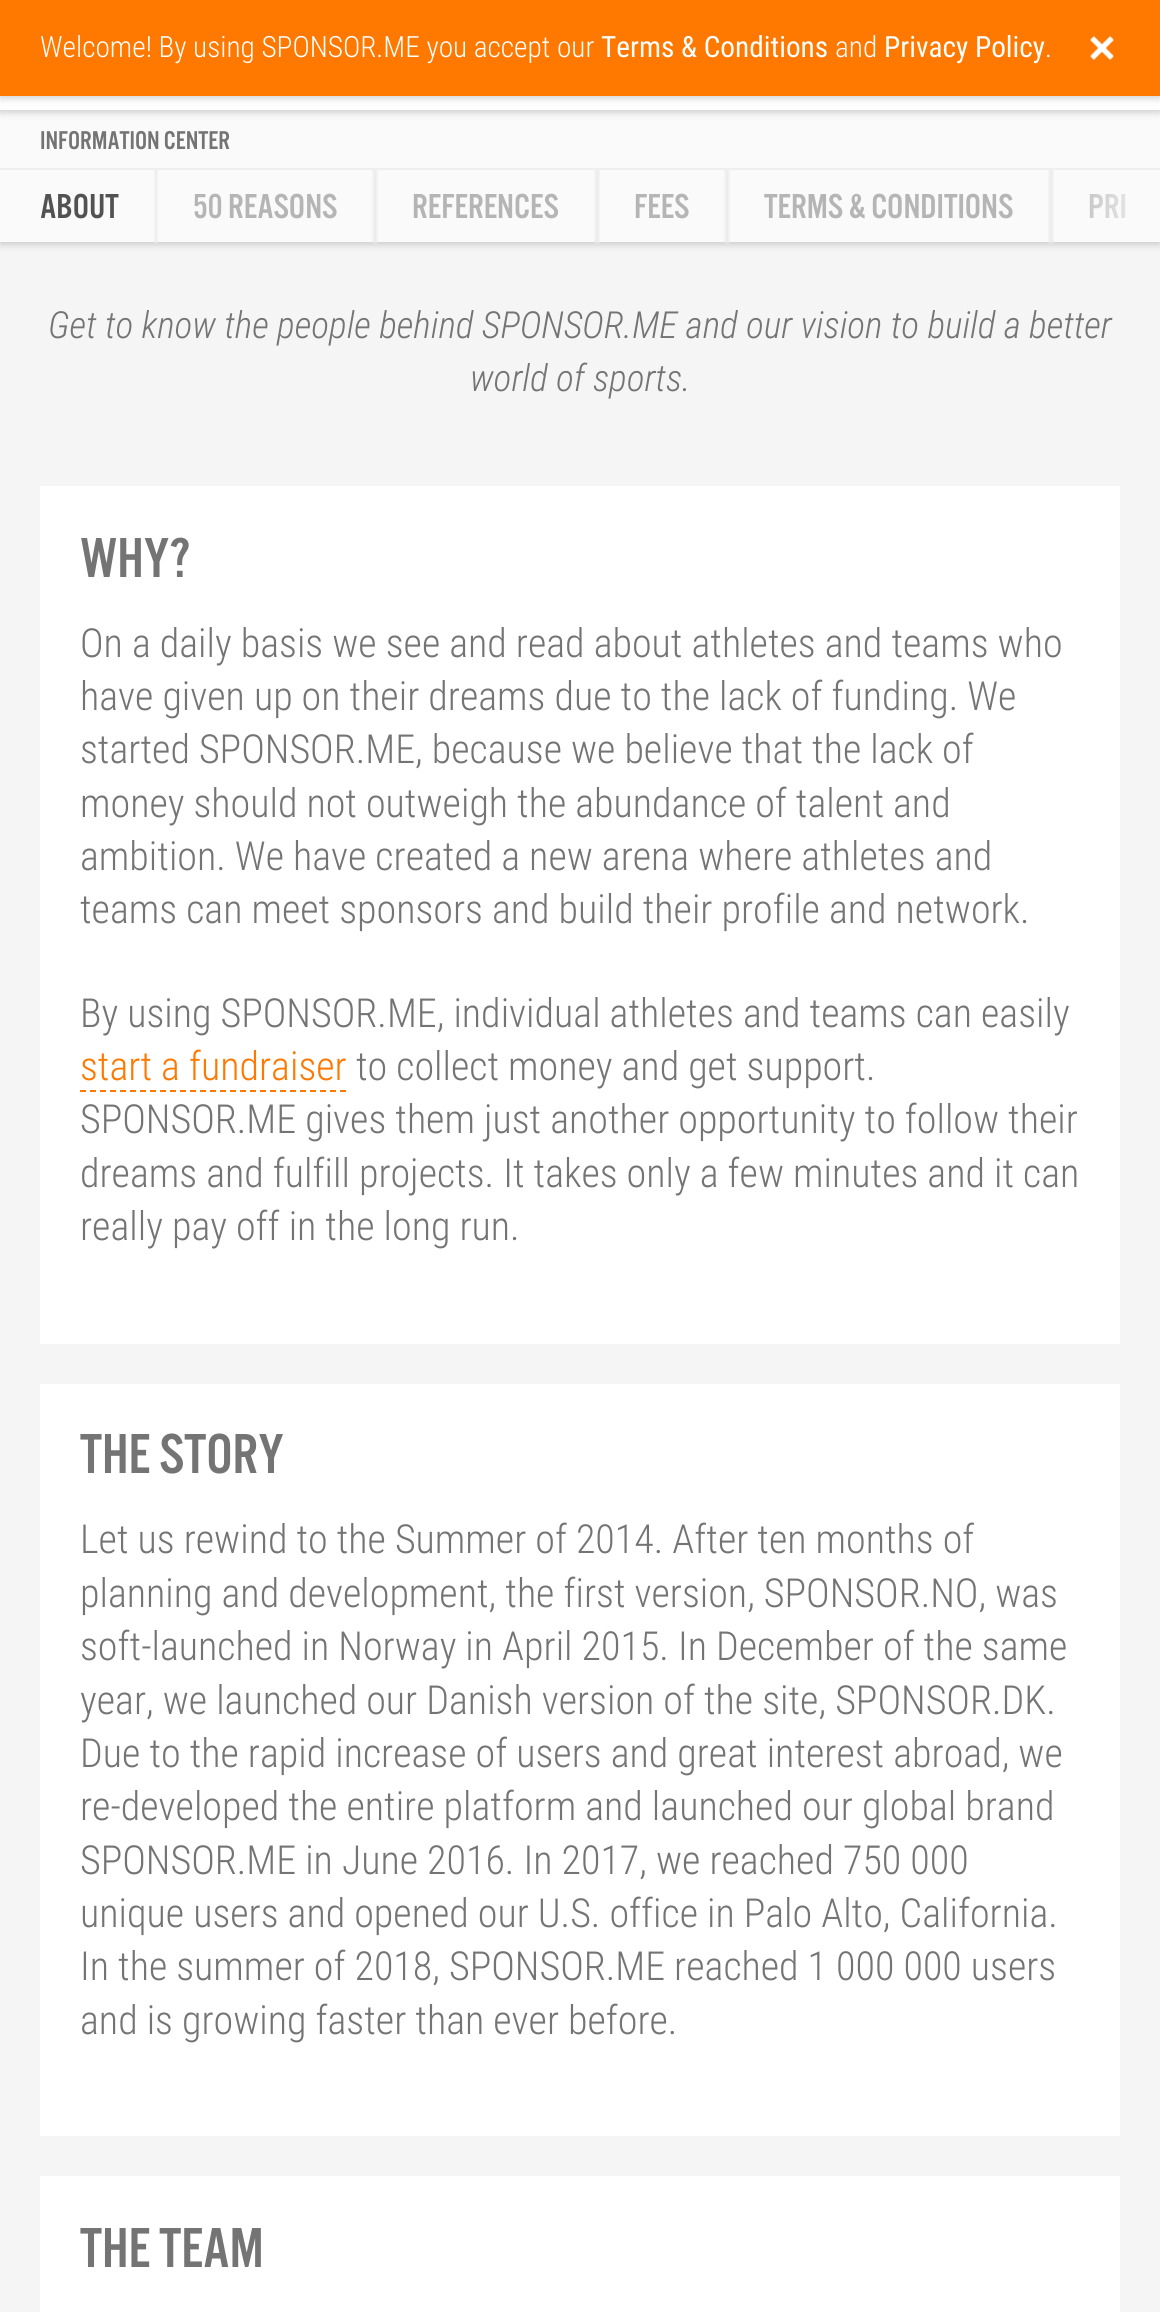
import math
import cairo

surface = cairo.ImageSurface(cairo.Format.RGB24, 1160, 2312)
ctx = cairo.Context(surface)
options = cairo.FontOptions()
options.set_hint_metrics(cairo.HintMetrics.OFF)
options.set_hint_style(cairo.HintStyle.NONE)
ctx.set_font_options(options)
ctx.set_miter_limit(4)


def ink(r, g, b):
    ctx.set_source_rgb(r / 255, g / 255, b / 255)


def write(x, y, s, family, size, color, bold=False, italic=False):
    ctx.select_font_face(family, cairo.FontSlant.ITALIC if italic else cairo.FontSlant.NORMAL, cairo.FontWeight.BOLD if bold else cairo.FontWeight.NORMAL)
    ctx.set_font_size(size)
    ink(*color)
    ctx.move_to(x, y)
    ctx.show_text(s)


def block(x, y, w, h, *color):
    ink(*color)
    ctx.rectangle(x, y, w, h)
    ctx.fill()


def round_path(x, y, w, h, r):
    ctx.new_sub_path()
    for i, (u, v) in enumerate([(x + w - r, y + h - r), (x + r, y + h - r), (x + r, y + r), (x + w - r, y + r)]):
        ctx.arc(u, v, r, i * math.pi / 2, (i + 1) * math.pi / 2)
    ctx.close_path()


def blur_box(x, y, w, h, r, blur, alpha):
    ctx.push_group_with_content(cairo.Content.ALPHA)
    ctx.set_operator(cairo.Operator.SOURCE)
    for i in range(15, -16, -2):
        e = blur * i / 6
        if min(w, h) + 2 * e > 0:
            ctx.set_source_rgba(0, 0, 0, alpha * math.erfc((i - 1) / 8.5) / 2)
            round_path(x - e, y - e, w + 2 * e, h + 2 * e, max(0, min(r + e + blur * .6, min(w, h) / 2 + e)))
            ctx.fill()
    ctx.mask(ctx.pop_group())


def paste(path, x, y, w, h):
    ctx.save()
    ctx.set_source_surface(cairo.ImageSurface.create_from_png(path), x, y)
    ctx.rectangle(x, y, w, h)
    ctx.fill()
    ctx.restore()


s1 = dict(family="Roboto Condensed Light", size=29.3, color=(255, 255, 255))
s2 = dict(family="Roboto Condensed", size=29.3, color=(255, 255, 255))
s3 = dict(family="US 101", size=26.75, color=(116, 116, 116))
s4 = dict(family="US 101", size=36, color=(82, 82, 82))
s5 = dict(family="US 101", size=36, color=(181, 181, 181))
s6 = dict(family="Roboto Condensed Light", size=37.3, color=(116, 116, 116), italic=True)
s7 = dict(family="US 101", size=58.5, color=(116, 116, 116))
s8 = dict(family="Roboto Condensed Light", size=40, color=(116, 116, 116))
s9 = dict(family="Roboto Condensed Light", size=40, color=(255, 120, 0))

ink(245, 245, 245)
ctx.paint()
ink(0, 0, 0)
blur_box(0, 112, 1160, 132, 0, 4, 0.2)
block(0, 110, 1160, 132, 250, 250, 250)
ink(0, 0, 0)
blur_box(0, 2, 1160, 110, 0, 4, 0.2)
block(0, 96, 1160, 14, 255, 255, 255)
ink(0, 0, 0)
blur_box(0, 2, 1160, 96, 0, 4, 0.2)
block(0, 0, 1160, 96, 255, 120, 0)
write(40, 57, "Welcome! By using SPONSOR.ME you accept our", **s1)
write(601, 57, "Terms & Conditions", **s2)
write(835, 57, "and", **s1)
write(884, 57, "Privacy Policy", **s2)
write(1045, 57, ".", **s1)
paste("pic1.png", 1090, 35, 24, 25)
block(0, 168, 1160, 2, 238, 238, 238)
write(40, 149, "INFORMATION CENTER", **s3)
write(40, 218, "ABOUT", **s4)
paste("pic2.png", 154, 170, 4, 74)
write(193, 218, "50 REASONS", **s5)
paste("pic3.png", 372, 170, 6, 74)
write(412, 218, "REFERENCES", **s5)
paste("pic3.png", 594, 170, 6, 74)
write(634, 218, "FEES", **s5)
paste("pic3.png", 724, 170, 6, 74)
write(764, 218, "TERMS & CONDITIONS", **s5)
paste("pic3.png", 1048, 170, 6, 74)
write(1088, 218, "PRI", **s5)
gradient = cairo.LinearGradient(1060, 205, 1160, 205)
gradient.add_color_stop_rgba(0, 0.98, 0.98, 0.98, 0)
gradient.add_color_stop_rgba(0.01, 0.98, 0.98, 0.98, 0.01)
gradient.add_color_stop_rgba(1, 0.98, 0.98, 0.98, 1)
ctx.set_source(gradient)
ctx.rectangle(1089, 194, 36, 24)
ctx.fill()
write(48, 338, "Get to know the people behind SPONSOR.ME and our vision to build a better", **s6)
write(470, 391, "world of sports.", **s6)
block(40, 486, 1080, 858, 255, 255, 255)
write(80, 577, "WHY?", **s7)
write(80, 657, "On a daily basis we see and read about athletes and teams who", **s8)
write(80, 710, "have given up on their dreams due to the lack of funding. We", **s8)
write(80, 763, "started SPONSOR.ME, because we believe that the lack of", **s8)
write(80, 817, "money should not outweigh the abundance of talent and", **s8)
write(80, 870, "ambition. We have created a new arena where athletes and", **s8)
write(80, 923, "teams can meet sponsors and build their profile and network.", **s8)
write(80, 1027, "By using SPONSOR.ME, individual athletes and teams can easily", **s8)
write(80, 1080, "start a fundraiser", **s9)
ctx.new_path()
ctx.move_to(80, 1091)
ctx.line_to(346, 1091)
ctx.set_dash([6, 4])
ctx.stroke()
write(356, 1080, "to collect money and get support.", **s8)
write(80, 1133, "SPONSOR.ME gives them just another opportunity to follow their", **s8)
write(80, 1187, "dreams and fulfill projects. It takes only a few minutes and it can", **s8)
write(80, 1240, "really pay off in the long run.", **s8)
block(40, 1384, 1080, 752, 255, 255, 255)
write(80, 1473, "THE STORY", **s7)
write(80, 1553, "Let us rewind to the Summer of 2014. After ten months of", **s8)
write(80, 1607, "planning and development, the first version, SPONSOR.NO, was", **s8)
write(80, 1660, "soft-launched in Norway in April 2015. In December of the same", **s8)
write(80, 1714, "year, we launched our Danish version of the site, SPONSOR.DK.", **s8)
write(80, 1767, "Due to the rapid increase of users and great interest abroad, we", **s8)
write(80, 1820, "re-developed the entire platform and launched our global brand", **s8)
write(80, 1874, "SPONSOR.ME in June 2016. In 2017, we reached 750 000", **s8)
write(80, 1927, "unique users and opened our U.S. office in Palo Alto, California.", **s8)
write(80, 1980, "In the summer of 2018, SPONSOR.ME reached 1 000 000 users", **s8)
write(80, 2034, "and is growing faster than ever before.", **s8)
block(40, 2176, 1080, 136, 255, 255, 255)
write(80, 2267, "THE TEAM", **s7)
surface.write_to_png("screenshot.png")
